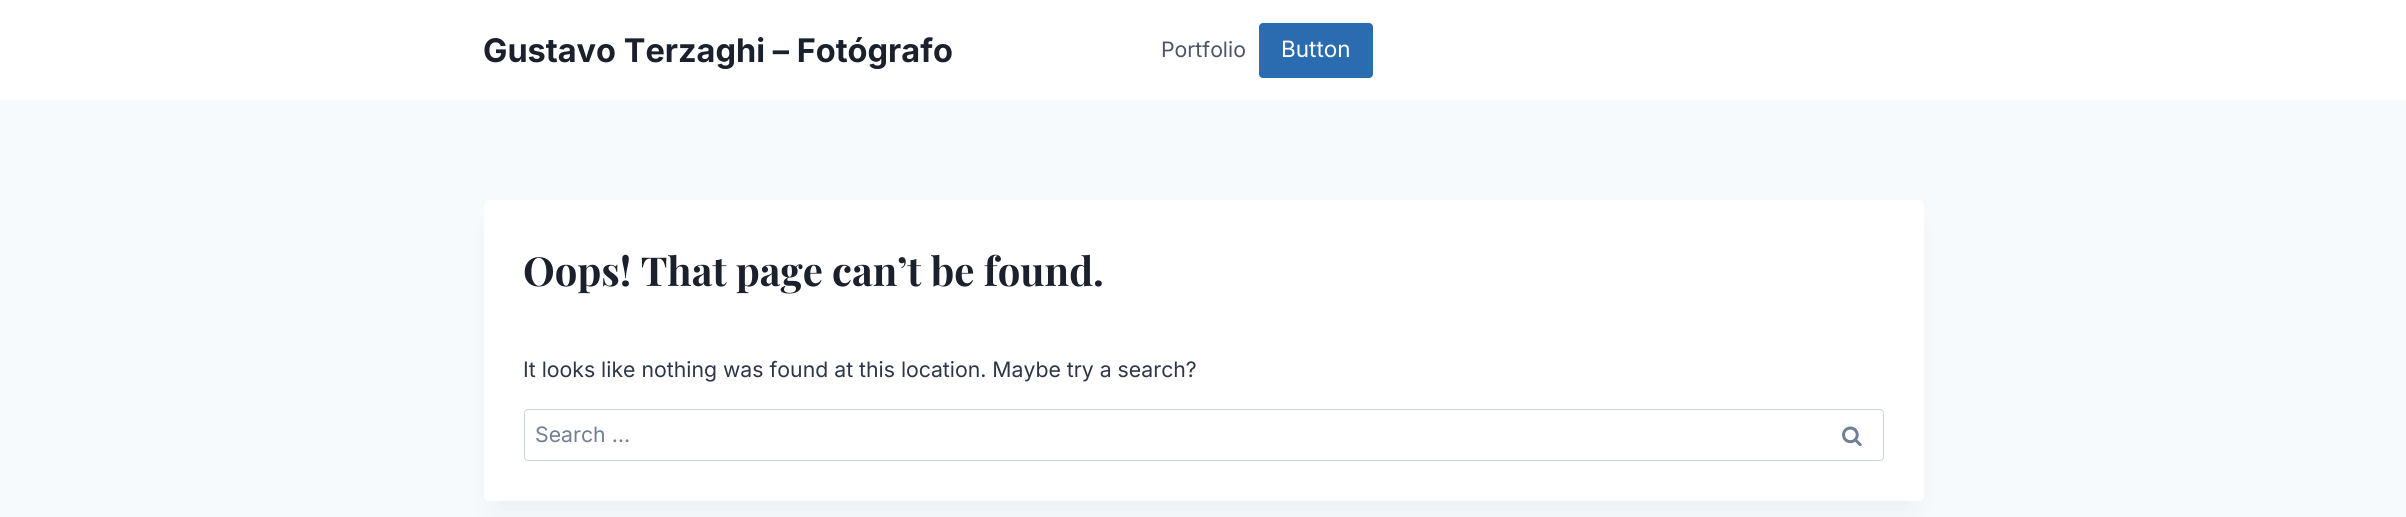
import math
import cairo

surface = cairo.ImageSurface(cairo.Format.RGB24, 2406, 517)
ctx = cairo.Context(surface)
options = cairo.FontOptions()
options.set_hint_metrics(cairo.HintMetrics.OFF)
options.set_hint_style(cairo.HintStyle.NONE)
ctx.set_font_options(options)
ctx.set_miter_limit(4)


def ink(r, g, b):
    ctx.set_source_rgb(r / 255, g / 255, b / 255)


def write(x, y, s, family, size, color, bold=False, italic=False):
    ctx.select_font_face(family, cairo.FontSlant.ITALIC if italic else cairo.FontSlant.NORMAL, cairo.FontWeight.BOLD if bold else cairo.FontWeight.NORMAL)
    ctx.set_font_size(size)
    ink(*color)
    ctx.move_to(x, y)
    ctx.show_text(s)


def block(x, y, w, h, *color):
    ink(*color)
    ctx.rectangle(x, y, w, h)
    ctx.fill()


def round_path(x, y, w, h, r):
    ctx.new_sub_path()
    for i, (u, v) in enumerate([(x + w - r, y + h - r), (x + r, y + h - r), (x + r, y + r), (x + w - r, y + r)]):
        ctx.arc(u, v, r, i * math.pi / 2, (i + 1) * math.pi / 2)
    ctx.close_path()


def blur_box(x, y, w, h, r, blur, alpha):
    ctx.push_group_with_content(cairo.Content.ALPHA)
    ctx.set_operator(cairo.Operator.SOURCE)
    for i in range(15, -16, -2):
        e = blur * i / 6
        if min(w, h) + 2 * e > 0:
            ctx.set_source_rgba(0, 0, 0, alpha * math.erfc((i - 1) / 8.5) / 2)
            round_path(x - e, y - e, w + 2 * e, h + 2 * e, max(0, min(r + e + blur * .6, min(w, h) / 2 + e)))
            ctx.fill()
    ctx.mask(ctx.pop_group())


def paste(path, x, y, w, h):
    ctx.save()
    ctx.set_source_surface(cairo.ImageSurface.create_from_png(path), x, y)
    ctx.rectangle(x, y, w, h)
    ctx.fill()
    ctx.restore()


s1 = dict(family="Inter", size=32.5, color=(26, 32, 44), bold=True)
s2 = dict(family="Inter", size=21.25, color=(74, 85, 104))
s3 = dict(family="Inter", size=22.5, color=(255, 255, 255))
s4 = dict(family="Playfair Display", size=40, color=(26, 32, 44), bold=True)
s5 = dict(family="Inter", size=21.25, color=(45, 55, 72))
s6 = dict(family="Inter", size=21.25, color=(113, 128, 150))

ink(247, 250, 252)
ctx.paint()
block(0, 0, 2406, 100, 255, 255, 255)
write(483, 62, "Gustavo Terzaghi – Fotógrafo", **s1)
write(1161, 57, "Portfolio", **s2)
ink(43, 108, 176)
round_path(1259, 23, 114, 55, 4)
ctx.fill()
write(1281, 57, "Button", **s3)
ink(0, 0, 0)
blur_box(496, 231, 1415, 277, 0, 15.5, 0.05)
ink(255, 255, 255)
round_path(484, 200, 1440, 301, 5)
ctx.fill()
write(523, 286, "Oops! That page can’t be found.", **s4)
write(523, 377, "It looks like nothing was found at this location. Maybe try a search?", **s5)
round_path(524.5, 409.5, 1359, 51, 3.5)
ink(203, 213, 224)
ctx.set_line_width(1)
ctx.stroke()
write(535, 442, "Search …", **s6)
paste("pic1.png", 1842, 426, 20, 20)
surface.write_to_png("screenshot.png")
